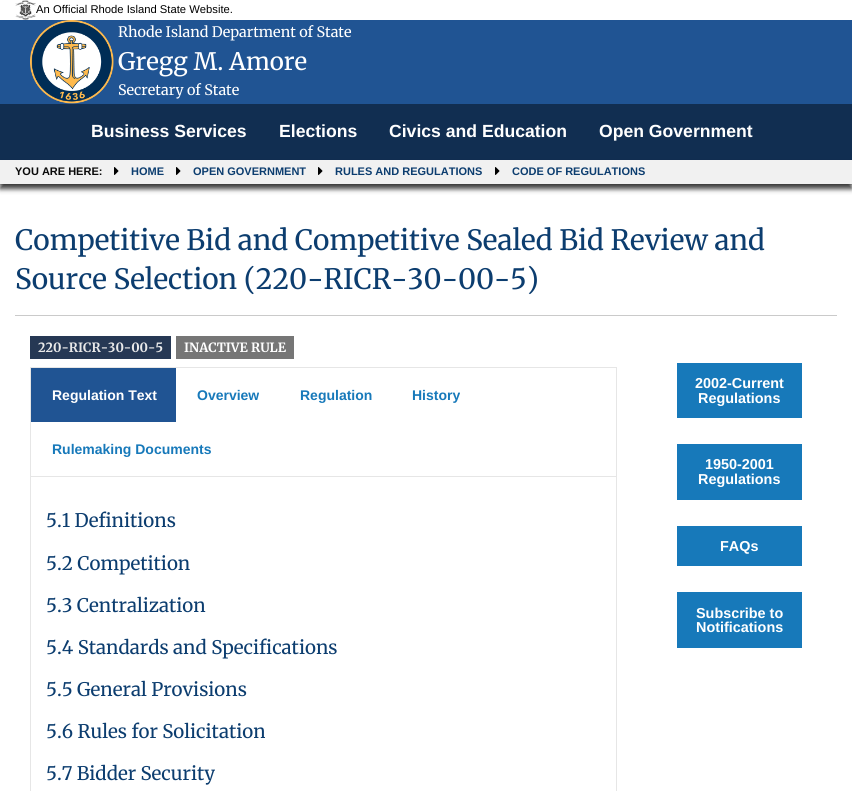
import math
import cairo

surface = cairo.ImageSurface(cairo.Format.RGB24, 852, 791)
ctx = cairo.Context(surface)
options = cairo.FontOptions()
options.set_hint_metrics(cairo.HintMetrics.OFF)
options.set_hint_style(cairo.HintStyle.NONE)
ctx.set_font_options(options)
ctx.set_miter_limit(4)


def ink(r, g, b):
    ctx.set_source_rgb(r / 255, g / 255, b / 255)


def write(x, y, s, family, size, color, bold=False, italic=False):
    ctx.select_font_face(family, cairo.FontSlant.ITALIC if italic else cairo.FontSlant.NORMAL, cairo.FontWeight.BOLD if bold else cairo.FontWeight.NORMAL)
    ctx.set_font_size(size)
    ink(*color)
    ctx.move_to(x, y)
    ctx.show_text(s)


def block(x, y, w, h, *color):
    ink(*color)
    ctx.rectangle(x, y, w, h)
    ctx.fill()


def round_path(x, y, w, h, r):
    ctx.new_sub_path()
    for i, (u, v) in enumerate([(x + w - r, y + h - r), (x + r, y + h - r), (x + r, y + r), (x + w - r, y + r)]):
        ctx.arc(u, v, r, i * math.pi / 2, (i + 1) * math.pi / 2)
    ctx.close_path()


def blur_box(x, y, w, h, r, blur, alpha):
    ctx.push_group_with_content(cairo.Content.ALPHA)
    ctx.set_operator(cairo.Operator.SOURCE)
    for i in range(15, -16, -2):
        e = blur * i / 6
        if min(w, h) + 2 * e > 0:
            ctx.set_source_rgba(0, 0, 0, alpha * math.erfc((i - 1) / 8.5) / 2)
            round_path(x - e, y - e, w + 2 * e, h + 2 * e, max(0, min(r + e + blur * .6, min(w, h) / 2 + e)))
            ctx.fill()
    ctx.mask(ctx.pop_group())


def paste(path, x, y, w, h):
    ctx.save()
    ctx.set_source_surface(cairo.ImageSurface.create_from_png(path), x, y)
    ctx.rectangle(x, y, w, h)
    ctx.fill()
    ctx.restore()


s1 = dict(family="Liberation Sans", size=11.25, color=(0, 0, 0))
s2 = dict(family="Merriweather", size=14.4, color=(255, 255, 255))
s3 = dict(family="Merriweather", size=24, color=(255, 255, 255))
s4 = dict(family="Liberation Sans", size=17.6, color=(255, 255, 255), bold=True)
s5 = dict(family="Liberation Sans", size=11, color=(10, 10, 10), bold=True)
s6 = dict(family="Liberation Sans", size=11, color=(12, 61, 111), bold=True)
s7 = dict(family="Merriweather", size=28, color=(12, 61, 111))
s8 = dict(family="Merriweather", size=12.75, color=(233, 233, 233), bold=True)
s9 = dict(family="Merriweather", size=12.75, color=(255, 255, 255), bold=True)
s10 = dict(family="Liberation Sans", size=14, color=(255, 255, 255), bold=True)
s11 = dict(family="Liberation Sans", size=14, color=(23, 121, 186), bold=True)
s12 = dict(family="Merriweather", size=18.7, color=(12, 61, 111))
s13 = dict(family="Liberation Sans", size=14.4, color=(255, 255, 255), bold=True)

ink(255, 255, 255)
ctx.paint()
block(0, 20, 852, 84, 32, 84, 147)
paste("pic1.png", 15, 0, 21, 20)
write(36, 13, "An Official Rhode Island State Website.", **s1)
paste("pic2.png", 30, 20, 84, 84)
write(118, 37, "Rhode Island Department of State", **s2)
write(118, 70, "Gregg M. Amore", **s3)
write(118, 95, "Secretary of State", **s2)
block(0, 184, 852, 1, 231, 231, 231)
block(0, 104, 852, 56, 17, 46, 81)
write(91, 137, "Business Services", **s4)
write(279, 137, "Elections", **s4)
write(389, 137, "Civics and Education", **s4)
write(599, 137, "Open Government", **s4)
ink(0, 0, 0)
blur_box(0, 165, 852, 24, 0, 2.5, 0.75)
block(0, 160, 852, 24, 241, 241, 241)
write(15, 175, "YOU ARE HERE:", **s5)
paste("pic3.png", 114, 167, 5, 8)
write(131, 175, "HOME", **s6)
paste("pic3.png", 176, 167, 5, 8)
write(193, 175, "OPEN GOVERNMENT", **s6)
paste("pic3.png", 318, 167, 5, 8)
write(335, 175, "RULES AND REGULATIONS", **s6)
paste("pic3.png", 495, 167, 5, 8)
write(512, 175, "CODE OF REGULATIONS", **s6)
write(15, 250, "Competitive Bid and Competitive Sealed Bid Review and", **s7)
write(15, 289, "Source Selection (220-RICR-30-00-5)", **s7)
block(15, 315, 822, 1, 202, 202, 202)
block(30, 336, 141, 23, 38, 56, 84)
write(38, 352, "220-RICR-30-00-5", **s8)
block(176, 336, 118, 23, 118, 118, 118)
write(184, 352, "INACTIVE RULE", **s9)
ctx.rectangle(30.5, 367.5, 586, 109)
ink(230, 230, 230)
ctx.set_line_width(1)
ctx.stroke()
block(31, 368, 145, 54, 32, 84, 147)
write(52, 400, "Regulation Text", **s10)
write(197, 400, "Overview", **s11)
write(300, 400, "Regulation", **s11)
write(412, 400, "History", **s11)
write(52, 454, "Rulemaking Documents", **s11)
block(616, 477, 1, 314, 230, 230, 230)
block(30, 477, 1, 314, 230, 230, 230)
write(46, 527, "5.1 Definitions", **s12)
write(46, 570, "5.2 Competition", **s12)
write(46, 612, "5.3 Centralization", **s12)
write(46, 654, "5.4 Standards and Specifications", **s12)
write(46, 696, "5.5 General Provisions", **s12)
write(46, 738, "5.6 Rules for Solicitation", **s12)
write(46, 780, "5.7 Bidder Security", **s12)
block(677, 363, 125, 55, 23, 121, 186)
write(695, 388, "2002-Current", **s13)
write(698, 403, "Regulations", **s13)
block(677, 444, 125, 56, 23, 121, 186)
write(705, 469, "1950-2001", **s13)
write(698, 484, "Regulations", **s13)
block(677, 526, 125, 40, 23, 121, 186)
write(720, 551, "FAQs", **s13)
block(677, 592, 125, 56, 23, 121, 186)
write(696, 618, "Subscribe to", **s13)
write(696, 632, "Notifications", **s13)
surface.write_to_png("screenshot.png")
